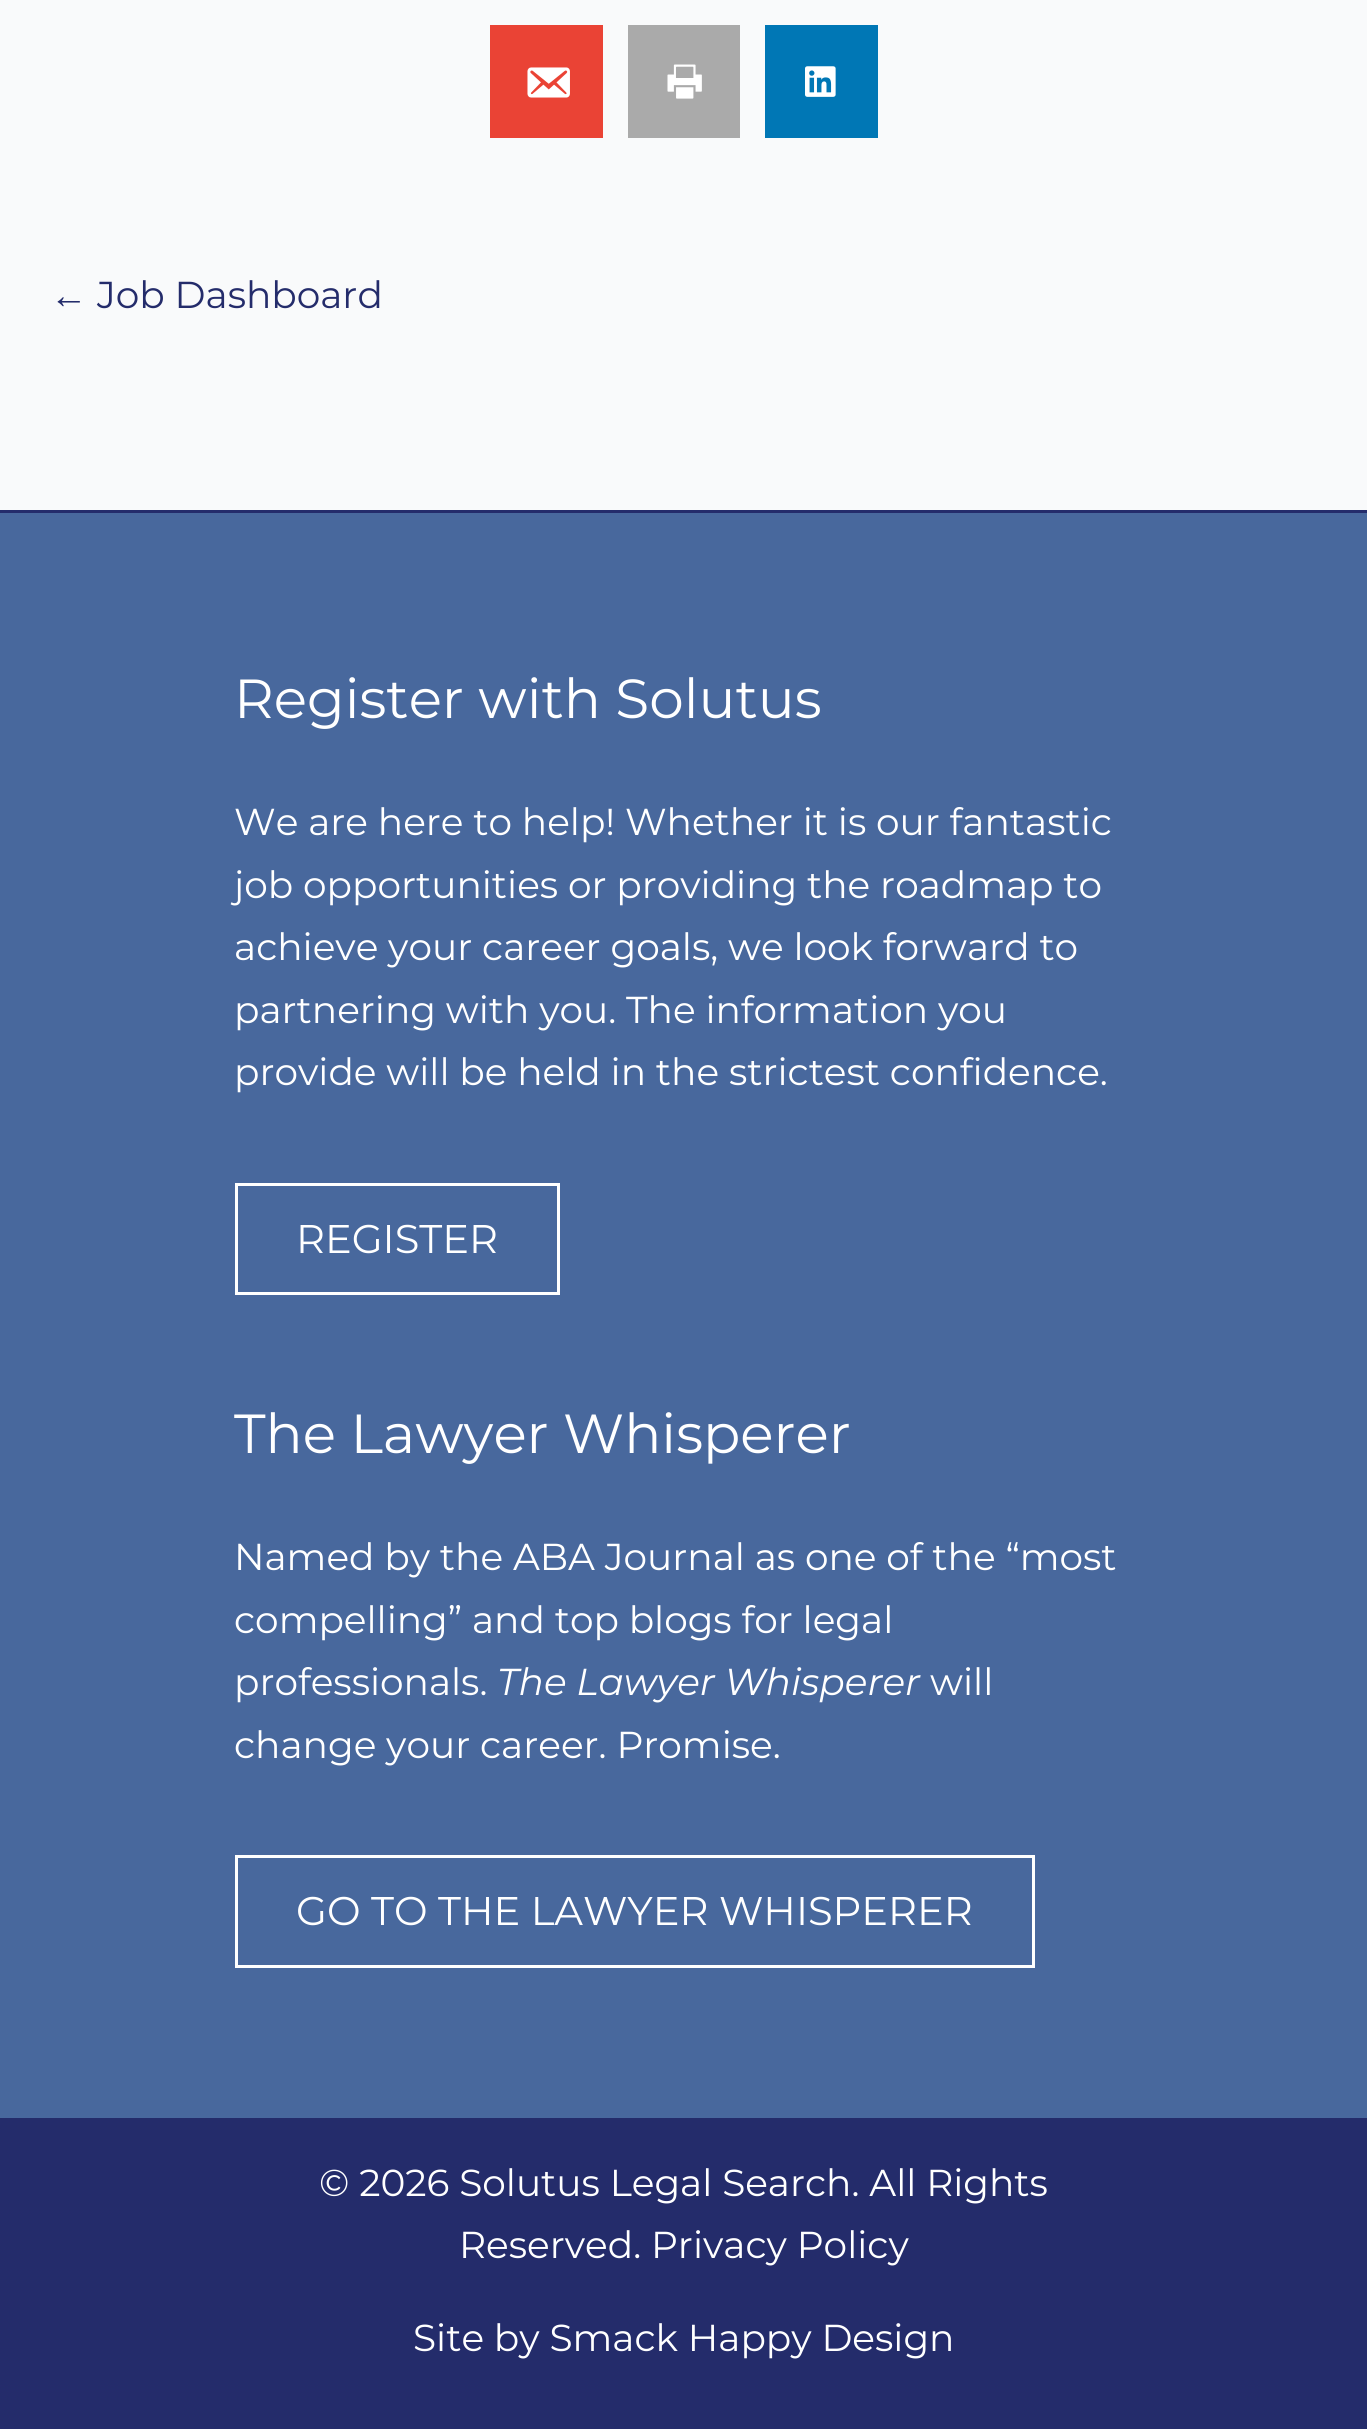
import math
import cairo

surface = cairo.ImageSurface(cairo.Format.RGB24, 1367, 2429)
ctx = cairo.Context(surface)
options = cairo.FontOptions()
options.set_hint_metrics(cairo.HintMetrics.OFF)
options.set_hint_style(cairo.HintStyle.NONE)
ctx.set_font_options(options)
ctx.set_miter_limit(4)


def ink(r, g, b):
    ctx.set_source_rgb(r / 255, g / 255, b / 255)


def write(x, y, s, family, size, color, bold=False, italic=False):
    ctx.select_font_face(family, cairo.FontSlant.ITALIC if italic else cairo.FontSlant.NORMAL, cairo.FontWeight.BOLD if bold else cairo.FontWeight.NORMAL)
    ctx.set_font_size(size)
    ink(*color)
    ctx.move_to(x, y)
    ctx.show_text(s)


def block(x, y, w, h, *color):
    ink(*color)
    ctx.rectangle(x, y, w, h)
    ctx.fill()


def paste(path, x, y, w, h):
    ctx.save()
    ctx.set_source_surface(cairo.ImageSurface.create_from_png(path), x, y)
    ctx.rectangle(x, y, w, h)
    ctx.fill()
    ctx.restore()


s1 = dict(family="Liberation Sans", size=37.5, color=(36, 44, 107))
s2 = dict(family="Montserrat", size=37.5, color=(36, 44, 107))
s3 = dict(family="Montserrat", size=55, color=(255, 255, 255))
s4 = dict(family="Montserrat", size=37.5, color=(255, 255, 255))
s5 = dict(family="Montserrat", size=40, color=(255, 255, 255))
s6 = dict(family="Montserrat", size=37.5, color=(255, 255, 255), italic=True)

ink(36, 44, 107)
ctx.paint()
block(0, 0, 1367, 510, 249, 250, 251)
block(490, 25, 113, 113, 234, 67, 53)
paste("pic1.png", 527, 67, 43, 31)
block(628, 25, 112, 113, 170, 170, 170)
paste("pic2.png", 667, 64, 35, 35)
block(765, 25, 113, 113, 0, 119, 181)
paste("pic3.png", 805, 66, 31, 31)
write(50, 308, "←", **s1)
write(97, 308, "Job Dashboard", **s2)
block(0, 513, 1367, 1605, 72, 104, 157)
write(234, 718, "Register with Solutus", **s3)
write(234, 835, "We are here to help! Whether it is our fantastic", **s4)
write(234, 898, "job opportunities or providing the roadmap to", **s4)
write(234, 960, "achieve your career goals, we look forward to", **s4)
write(234, 1023, "partnering with you. The information you", **s4)
write(234, 1085, "provide will be held in the strictest confidence.", **s4)
ctx.rectangle(236.5, 1184.5, 322, 109)
ctx.set_line_width(3)
ctx.stroke()
write(296, 1253, "REGISTER", **s5)
write(234, 1453, "The Lawyer Whisperer", **s3)
write(234, 1570, "Named by the ABA Journal as one of the “most", **s4)
write(234, 1633, "compelling” and top blogs for legal", **s4)
write(234, 1695, "professionals.", **s4)
write(497, 1695, "The Lawyer Whisperer", **s6)
write(930, 1695, "will", **s4)
write(234, 1758, "change your career. Promise.", **s4)
ctx.rectangle(236.5, 1856.5, 797, 110)
ctx.stroke()
write(296, 1925, "GO TO THE LAWYER WHISPERER", **s5)
write(319, 2196, "© 2026 Solutus Legal Search. All Rights", **s4)
write(459, 2258, "Reserved. Privacy Policy", **s4)
write(413, 2351, "Site by Smack Happy Design", **s4)
surface.write_to_png("screenshot.png")
